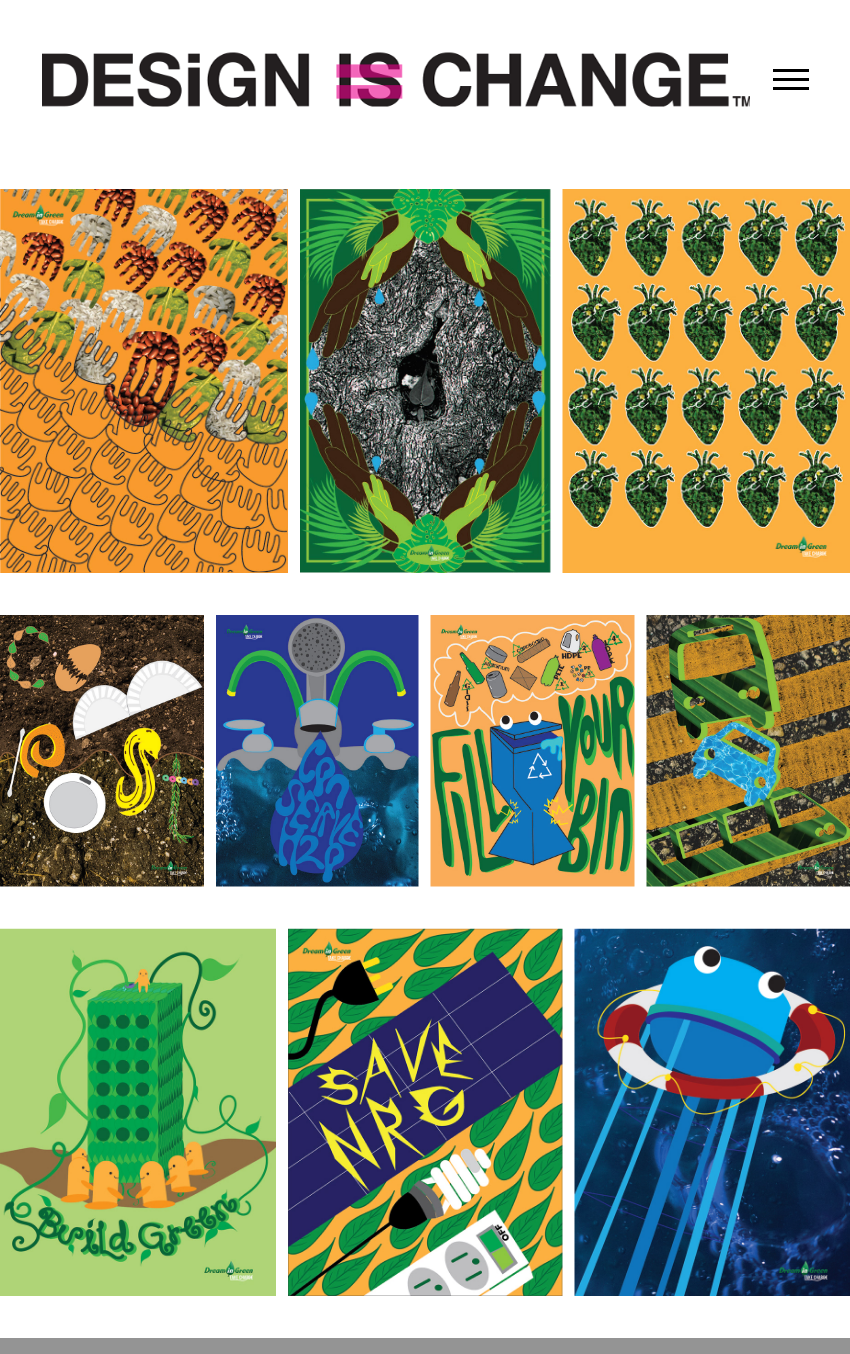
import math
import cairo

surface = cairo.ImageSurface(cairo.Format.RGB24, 850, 1354)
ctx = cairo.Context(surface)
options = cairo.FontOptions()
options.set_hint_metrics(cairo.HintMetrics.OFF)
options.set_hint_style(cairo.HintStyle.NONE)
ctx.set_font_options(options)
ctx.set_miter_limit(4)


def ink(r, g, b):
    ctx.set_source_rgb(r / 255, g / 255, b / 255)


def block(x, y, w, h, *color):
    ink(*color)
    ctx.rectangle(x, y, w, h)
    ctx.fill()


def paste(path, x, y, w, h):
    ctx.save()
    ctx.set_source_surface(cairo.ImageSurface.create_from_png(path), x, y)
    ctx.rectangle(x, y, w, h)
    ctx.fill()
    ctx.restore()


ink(255, 255, 255)
ctx.paint()
paste("pic1.png", 42, 52, 708, 55)
block(773, 69, 36, 3, 0, 0, 0)
block(773, 78, 36, 3, 0, 0, 0)
block(773, 87, 36, 3, 0, 0, 0)
paste("pic2.png", 0, 189, 288, 384)
paste("pic3.png", 300, 189, 251, 384)
paste("pic4.png", 562, 189, 288, 384)
paste("pic5.png", 0, 615, 204, 272)
paste("pic6.png", 216, 615, 203, 272)
paste("pic7.png", 430, 615, 205, 272)
paste("pic8.png", 646, 615, 204, 272)
paste("pic9.png", 0, 928, 276, 368)
paste("pic10.png", 288, 928, 275, 368)
paste("pic11.png", 574, 928, 276, 368)
block(0, 1338, 850, 16, 148, 148, 148)
surface.write_to_png("screenshot.png")
